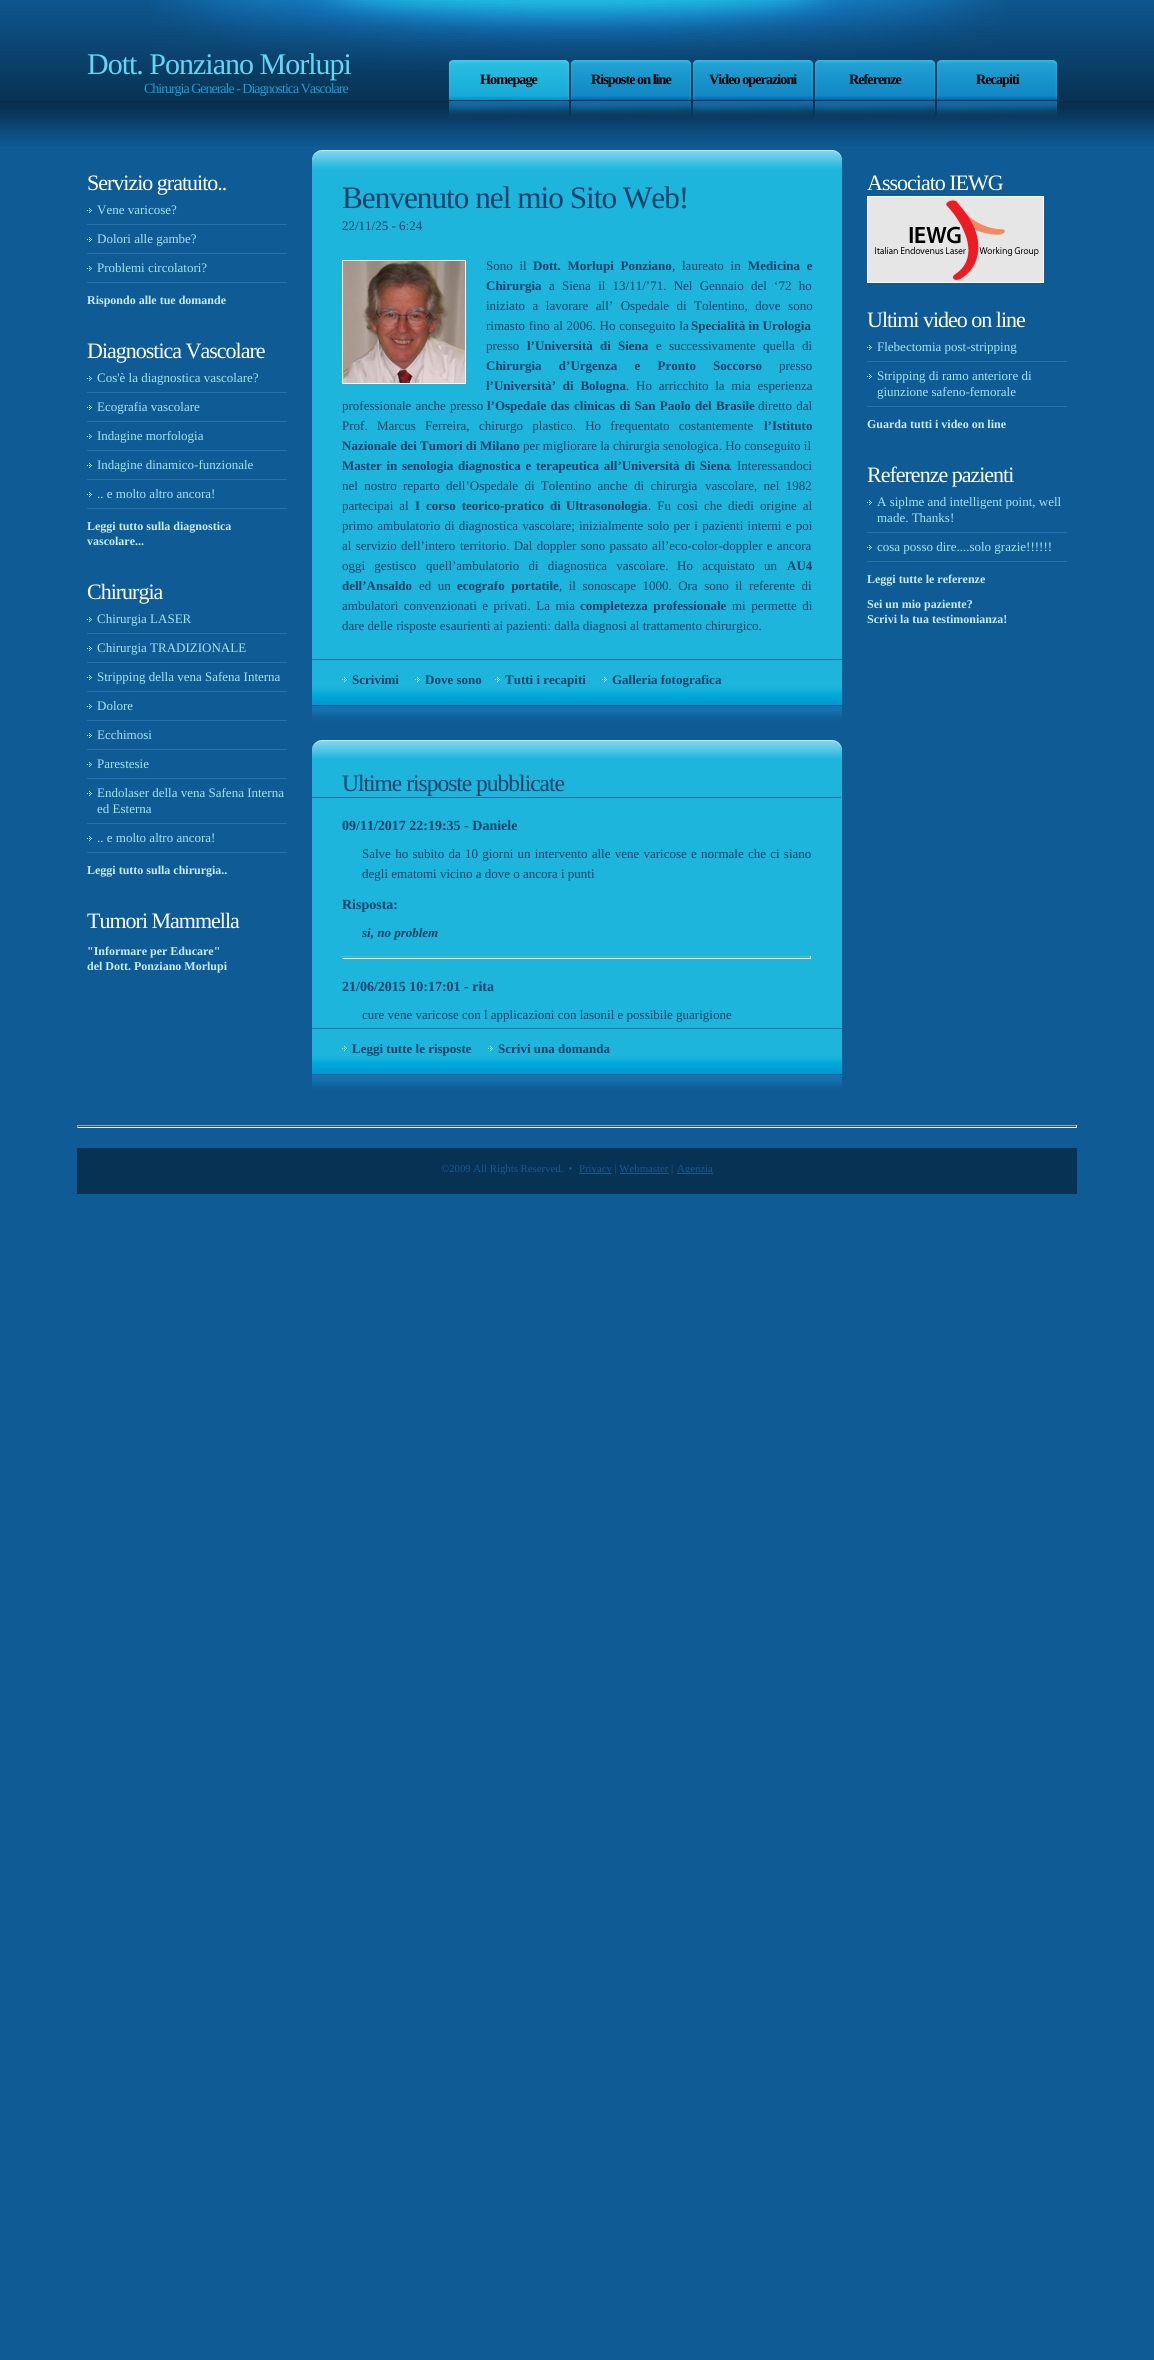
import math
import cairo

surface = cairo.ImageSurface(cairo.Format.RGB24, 1154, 2360)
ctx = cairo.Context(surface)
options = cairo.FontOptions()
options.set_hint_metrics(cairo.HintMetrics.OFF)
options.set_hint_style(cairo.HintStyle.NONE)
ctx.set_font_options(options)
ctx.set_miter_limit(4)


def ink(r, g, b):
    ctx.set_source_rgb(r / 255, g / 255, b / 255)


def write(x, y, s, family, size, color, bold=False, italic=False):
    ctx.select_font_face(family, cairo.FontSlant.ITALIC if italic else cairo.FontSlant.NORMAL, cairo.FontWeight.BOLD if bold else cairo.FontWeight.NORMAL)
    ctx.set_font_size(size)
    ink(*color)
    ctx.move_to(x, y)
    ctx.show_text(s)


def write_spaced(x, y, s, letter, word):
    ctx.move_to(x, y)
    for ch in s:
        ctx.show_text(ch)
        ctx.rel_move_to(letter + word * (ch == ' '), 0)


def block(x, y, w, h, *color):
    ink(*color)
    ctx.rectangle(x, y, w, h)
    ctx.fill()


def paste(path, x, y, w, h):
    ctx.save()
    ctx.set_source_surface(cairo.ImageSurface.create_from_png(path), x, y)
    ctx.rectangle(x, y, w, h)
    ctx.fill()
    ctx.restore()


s1 = dict(family="Liberation Serif", size=13, color=(164, 228, 245))
s2 = dict(family="Liberation Serif", size=12, color=(201, 236, 245), bold=True)
s3 = dict(family="Liberation Serif", size=13, color=(10, 65, 107))
s4 = dict(family="Liberation Serif", size=13, color=(10, 65, 107), bold=True)
s5 = dict(family="Liberation Serif", size=14, color=(10, 65, 107), bold=True)
s6 = dict(family="Liberation Serif", size=13, color=(10, 65, 107), bold=True, italic=True)
s7 = dict(family="Liberation Serif", size=10.75, color=(15, 91, 150))

ink(15, 91, 150)
ctx.paint()
paste("pic1.png", 0, 0, 1154, 146)
paste("pic2.png", 151, 0, 856, 70)
ctx.select_font_face("Liberation Serif")
ctx.set_font_size(30)
ink(98, 214, 245)
write_spaced(87, 74, "Dott. Ponziano Morlupi", -1, 0)
ctx.set_font_size(14)
ink(25, 157, 210)
write_spaced(144, 93, "Chirurgia Generale - Diagnostica Vascolare", -1, 0)
paste("pic3.png", 449, 60, 120, 65)
ctx.select_font_face("Liberation Serif", cairo.FontSlant.NORMAL, cairo.FontWeight.BOLD)
ctx.set_font_size(14.25)
ink(0, 0, 0)
write_spaced(480, 84, "Homepage", -1, 0)
paste("pic4.png", 571, 60, 120, 65)
write_spaced(591, 84, "Risposte on line", -1, 0)
paste("pic4.png", 693, 60, 120, 65)
write_spaced(709, 84, "Video operazioni", -1, 0)
paste("pic4.png", 815, 60, 120, 65)
write_spaced(849, 84, "Referenze", -1, 0)
paste("pic4.png", 937, 60, 120, 65)
write_spaced(976, 84, "Recapiti", -1, 0)
ctx.select_font_face("Liberation Serif")
ctx.set_font_size(22)
ink(255, 255, 255)
write_spaced(87, 190, "Servizio gratuito..", -1, 0)
paste("pic5.png", 87, 208, 5, 5)
block(87, 224, 200, 1, 40, 114, 166)
write(97, 214, "Vene varicose?", **s1)
paste("pic5.png", 87, 237, 5, 5)
block(87, 253, 200, 1, 40, 114, 166)
write(97, 243, "Dolori alle gambe?", **s1)
paste("pic5.png", 87, 266, 5, 5)
block(87, 282, 200, 1, 40, 114, 166)
write(97, 272, "Problemi circolatori?", **s1)
write(87, 304, "Rispondo alle tue domande", **s2)
ctx.select_font_face("Liberation Serif")
ctx.set_font_size(22)
ink(255, 255, 255)
write_spaced(87, 358, "Diagnostica Vascolare", -1, 0)
paste("pic5.png", 87, 376, 5, 5)
block(87, 392, 200, 1, 40, 114, 166)
write(97, 382, "Cos'è la diagnostica vascolare?", **s1)
paste("pic5.png", 87, 405, 5, 5)
block(87, 421, 200, 1, 40, 114, 166)
write(97, 411, "Ecografia vascolare", **s1)
paste("pic5.png", 87, 434, 5, 5)
block(87, 450, 200, 1, 40, 114, 166)
write(97, 440, "Indagine morfologia", **s1)
paste("pic5.png", 87, 463, 5, 5)
block(87, 479, 200, 1, 40, 114, 166)
write(97, 469, "Indagine dinamico-funzionale", **s1)
paste("pic5.png", 87, 492, 5, 5)
block(87, 508, 200, 1, 40, 114, 166)
write(97, 498, ".. e molto altro ancora!", **s1)
write(87, 530, "Leggi tutto sulla diagnostica", **s2)
write(87, 545, "vascolare...", **s2)
ctx.select_font_face("Liberation Serif")
ctx.set_font_size(22)
ink(255, 255, 255)
write_spaced(87, 599, "Chirurgia", -1, 0)
paste("pic5.png", 87, 617, 5, 5)
block(87, 633, 200, 1, 40, 114, 166)
write(97, 623, "Chirurgia LASER", **s1)
paste("pic5.png", 87, 646, 5, 5)
block(87, 662, 200, 1, 40, 114, 166)
write(97, 652, "Chirurgia TRADIZIONALE", **s1)
paste("pic5.png", 87, 675, 5, 5)
block(87, 691, 200, 1, 40, 114, 166)
write(97, 681, "Stripping della vena Safena Interna", **s1)
paste("pic5.png", 87, 704, 5, 5)
block(87, 720, 200, 1, 40, 114, 166)
write(97, 710, "Dolore", **s1)
paste("pic5.png", 87, 733, 5, 5)
block(87, 749, 200, 1, 40, 114, 166)
write(97, 739, "Ecchimosi", **s1)
paste("pic5.png", 87, 762, 5, 5)
block(87, 778, 200, 1, 40, 114, 166)
write(97, 768, "Parestesie", **s1)
paste("pic5.png", 87, 791, 5, 5)
block(87, 823, 200, 1, 40, 114, 166)
write(97, 797, "Endolaser della vena Safena Interna", **s1)
write(97, 813, "ed Esterna", **s1)
paste("pic5.png", 87, 836, 5, 5)
block(87, 852, 200, 1, 40, 114, 166)
write(97, 842, ".. e molto altro ancora!", **s1)
write(87, 874, "Leggi tutto sulla chirurgia..", **s2)
ctx.select_font_face("Liberation Serif")
ctx.set_font_size(22)
ink(255, 255, 255)
write_spaced(87, 928, "Tumori Mammella", -1, 0)
write(87, 955, "\"Informare per Educare\"", **s2)
write(87, 970, "del Dott. Ponziano Morlupi", **s2)
block(312, 169, 530, 518, 30, 181, 221)
paste("pic6.png", 312, 150, 530, 19)
ctx.select_font_face("Liberation Serif")
ctx.set_font_size(31.25)
ink(10, 65, 107)
write_spaced(342, 208, "Benvenuto nel mio Sito Web!", -1, 0)
write(342, 230, "22/11/25 - 6:24", **s3)
ctx.rectangle(342.5, 260.5, 123, 123)
ink(255, 255, 255)
ctx.set_line_width(1)
ctx.stroke()
paste("pic7.png", 343, 261, 122, 122)
ink(10, 65, 107)
write_spaced(486, 270, "Sono il", 0, 3.5)
ctx.select_font_face("Liberation Serif", cairo.FontSlant.NORMAL, cairo.FontWeight.BOLD)
write_spaced(533, 270, "Dott. Morlupi Ponziano", 0, 3.5)
ctx.select_font_face("Liberation Serif")
write_spaced(672, 270, ", laureato in", 0, 3.5)
ctx.select_font_face("Liberation Serif", cairo.FontSlant.NORMAL, cairo.FontWeight.BOLD)
write_spaced(748, 270, "Medicina e", 0, 3.5)
write(486, 290, "Chirurgia", **s4)
write(549, 290, "a", **s3)
write_spaced(562, 290, "Siena il 13/11/’71. Nel Gennaio del ‘72 ho", 0, 4)
write_spaced(486, 310, "iniziato a lavorare all’ Ospedale di", 0, 4.25)
write_spaced(694, 310, "Tolentino, dove sono", 0, 4.25)
write_spaced(486, 330, "rimasto fino al 2006. Ho conseguito la", 0, 0.5)
write(691, 330, "Specialità in Urologia", **s4)
write(486, 350, "presso", **s3)
ctx.select_font_face("Liberation Serif", cairo.FontSlant.NORMAL, cairo.FontWeight.BOLD)
write_spaced(527, 350, "l’Università di", 0, 4)
write(618, 350, "Siena", **s4)
ctx.select_font_face("Liberation Serif")
write_spaced(656, 350, "e successivamente quella di", 0, 4)
ctx.select_font_face("Liberation Serif", cairo.FontSlant.NORMAL, cairo.FontWeight.BOLD)
write_spaced(486, 370, "Chirurgia d’Urgenza e Pronto", 0, 14)
write(713, 370, "Soccorso", **s4)
write(779, 370, "presso", **s3)
ctx.select_font_face("Liberation Serif", cairo.FontSlant.NORMAL, cairo.FontWeight.BOLD)
write_spaced(486, 390, "l’Università’ di Bologna", 0, 3.5)
ctx.select_font_face("Liberation Serif")
write_spaced(626, 390, ". Ho arricchito la mia esperienza", 0, 3.5)
write_spaced(342, 410, "professionale anche presso", 0, 1)
ctx.select_font_face("Liberation Serif", cairo.FontSlant.NORMAL, cairo.FontWeight.BOLD)
write_spaced(487, 410, "l’Ospedale das", 0, 1)
write_spaced(574, 410, "clinicas di San Paolo del Brasile", 0, 1)
ctx.select_font_face("Liberation Serif")
write_spaced(758, 410, "diretto dal", 0, 1)
write_spaced(342, 430, "Prof. Marcus Ferreira,", 0, 6)
write_spaced(479, 430, "chirurgo plastico. Ho frequentato costantemente", 0, 6)
write(764, 430, "l’Istituto", **s4)
write(342, 450, "Nazionale dei Tumori di Milano", **s4)
write(523, 450, "per migliorare la chirurgia senologica. Ho conseguito il", **s3)
ctx.select_font_face("Liberation Serif", cairo.FontSlant.NORMAL, cairo.FontWeight.BOLD)
write_spaced(342, 470, "Master in senologia", 0, 1.5)
write_spaced(458, 470, "diagnostica e terapeutica all’Università di Siena", 0, 1.5)
write(729, 470, ".", **s3)
write(737, 470, "Interessandoci", **s3)
write_spaced(342, 490, "nel nostro reparto dell’Ospedale di Tolentino anche di chirurgia", 0, 3)
write_spaced(705, 490, "vascolare, nel 1982", 0, 3)
write_spaced(342, 510, "partecipai al", 0, 2.75)
ctx.select_font_face("Liberation Serif", cairo.FontSlant.NORMAL, cairo.FontWeight.BOLD)
write_spaced(415, 510, "I corso teorico-pratico di", 0, 2.75)
write(566, 510, "Ultrasonologia", **s4)
ctx.select_font_face("Liberation Serif")
write_spaced(648, 510, ". Fu così che diedi origine al", 0, 2.75)
write_spaced(342, 530, "primo ambulatorio di diagnostica vascolare;", 0, 1)
write_spaced(579, 530, "inizialmente solo per i pazienti interni e poi", 0, 1)
write_spaced(342, 550, "al servizio dell’intero", 0, 1)
write_spaced(460, 550, "territorio. Dal doppler sono passato all’eco-color-doppler e ancora", 0, 1)
write_spaced(342, 570, "oggi gestisco", 0, 6)
write_spaced(426, 570, "quell’ambulatorio di diagnostica vascolare.", 0, 6)
write_spaced(677, 570, "Ho acquistato un", 0, 6)
write(787, 570, "AU4", **s4)
write(342, 590, "dell’Ansaldo", **s4)
ctx.select_font_face("Liberation Serif")
write_spaced(419, 590, "ed un", 0, 3.25)
ctx.select_font_face("Liberation Serif", cairo.FontSlant.NORMAL, cairo.FontWeight.BOLD)
write_spaced(457, 590, "ecografo portatile", 0, 3.25)
ctx.select_font_face("Liberation Serif")
write_spaced(559, 590, ", il sonoscape 1000. Ora sono il referente di", 0, 3.25)
write_spaced(342, 610, "ambulatori convenzionati e privati. La mia", 0, 2.25)
ctx.select_font_face("Liberation Serif", cairo.FontSlant.NORMAL, cairo.FontWeight.BOLD)
write_spaced(580, 610, "completezza professionale", 0, 2.25)
ctx.select_font_face("Liberation Serif")
write_spaced(732, 610, "mi permette di", 0, 2.25)
write(342, 630, "dare delle risposte esaurienti ai pazienti: dalla diagnosi al trattamento chirurgico.", **s3)
paste("pic8.png", 312, 687, 530, 38)
block(312, 659, 530, 1, 40, 114, 166)
paste("pic9.png", 342, 677, 5, 5)
write(352, 684, "Scrivimi", **s4)
paste("pic9.png", 415, 677, 5, 5)
write(425, 684, "Dove sono", **s4)
paste("pic9.png", 495, 677, 5, 5)
write(505, 684, "Tutti i recapiti", **s4)
paste("pic9.png", 602, 677, 5, 5)
write(612, 684, "Galleria fotografica", **s4)
block(312, 759, 530, 297, 30, 181, 221)
paste("pic6.png", 312, 740, 530, 19)
ctx.select_font_face("Liberation Serif")
ctx.set_font_size(23.5)
ink(10, 65, 107)
write_spaced(342, 791, "Ultime risposte pubblicate", -1, 0)
block(312, 797, 529, 1, 40, 114, 166)
write(342, 830, "09/11/2017 22:19:35 - Daniele", **s5)
ctx.select_font_face("Liberation Serif")
ctx.set_font_size(13)
write_spaced(362, 858, "Salve ho subito da 10 giorni un intervento alle vene varicose e normale che ci siano", 0, 1)
write(362, 878, "degli ematomi vicino a dove o ancora i punti", **s3)
write(342, 909, "Risposta:", **s5)
write(362, 937, "si, no problem", **s6)
block(342, 956, 469, 1, 159, 159, 159)
block(810, 956, 1, 3, 238, 238, 238)
block(342, 958, 469, 1, 238, 238, 238)
block(342, 956, 1, 3, 159, 159, 159)
write(342, 991, "21/06/2015 10:17:01 - rita", **s5)
write(362, 1019, "cure vene varicose con l applicazioni con lasonil e possibile guarigione", **s3)
paste("pic8.png", 312, 1056, 530, 38)
block(312, 1028, 530, 1, 40, 114, 166)
paste("pic9.png", 342, 1046, 5, 5)
write(352, 1053, "Leggi tutte le risposte", **s4)
paste("pic9.png", 488, 1046, 5, 5)
write(498, 1053, "Scrivi una domanda", **s4)
ctx.select_font_face("Liberation Serif")
ctx.set_font_size(22)
ink(255, 255, 255)
write_spaced(867, 190, "Associato IEWG", -1, 0)
ctx.rectangle(867.5, 196.5, 176, 86)
ctx.stroke()
paste("pic10.png", 868, 197, 175, 85)
write_spaced(867, 327, "Ultimi video on line", -1, 0)
paste("pic5.png", 867, 345, 5, 5)
block(867, 361, 200, 1, 40, 114, 166)
write(877, 351, "Flebectomia post-stripping", **s1)
paste("pic5.png", 867, 374, 5, 5)
block(867, 406, 200, 1, 40, 114, 166)
write(877, 380, "Stripping di ramo anteriore di", **s1)
write(877, 396, "giunzione safeno-femorale", **s1)
write(867, 428, "Guarda tutti i video on line", **s2)
ctx.select_font_face("Liberation Serif")
ctx.set_font_size(22)
ink(255, 255, 255)
write_spaced(867, 482, "Referenze pazienti", -1, 0)
paste("pic5.png", 867, 500, 5, 5)
block(867, 532, 200, 1, 40, 114, 166)
write(877, 506, "A siplme and intelligent point, well", **s1)
write(877, 522, "made. Thanks!", **s1)
paste("pic5.png", 867, 545, 5, 5)
block(867, 561, 200, 1, 40, 114, 166)
write(877, 551, "cosa posso dire....solo grazie!!!!!!", **s1)
write(867, 583, "Leggi tutte le referenze", **s2)
write(867, 608, "Sei un mio paziente?", **s2)
write(867, 623, "Scrivi la tua testimonianza!", **s2)
block(77, 1125, 1000, 1, 159, 159, 159)
block(1076, 1125, 1, 3, 238, 238, 238)
block(77, 1127, 1000, 1, 238, 238, 238)
block(77, 1125, 1, 3, 159, 159, 159)
block(77, 1148, 1000, 46, 8, 50, 83)
write(441, 1172, "©2009 All Rights Reserved.  •", **s7)
block(579, 1173, 33, 1, 15, 91, 150)
write(579, 1172, "Privacy | Webmaster |", **s7)
block(677, 1173, 36, 1, 15, 91, 150)
write(677, 1172, "Agenzia", **s7)
block(620, 1173, 49, 1, 15, 91, 150)
surface.write_to_png("screenshot.png")
